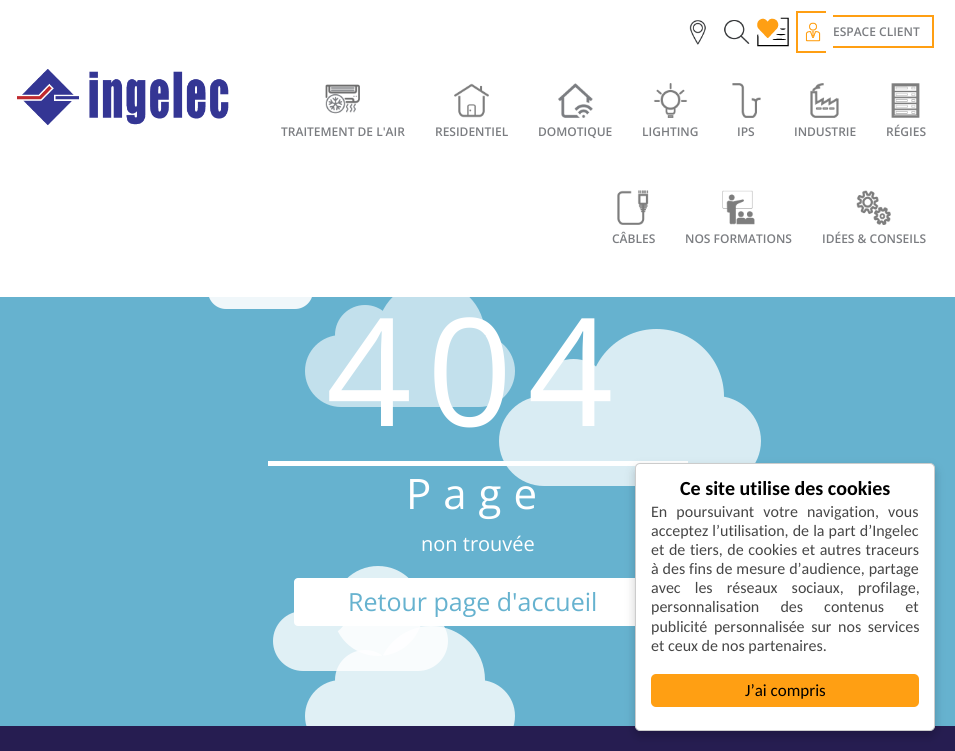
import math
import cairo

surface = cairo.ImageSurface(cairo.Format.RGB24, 955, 751)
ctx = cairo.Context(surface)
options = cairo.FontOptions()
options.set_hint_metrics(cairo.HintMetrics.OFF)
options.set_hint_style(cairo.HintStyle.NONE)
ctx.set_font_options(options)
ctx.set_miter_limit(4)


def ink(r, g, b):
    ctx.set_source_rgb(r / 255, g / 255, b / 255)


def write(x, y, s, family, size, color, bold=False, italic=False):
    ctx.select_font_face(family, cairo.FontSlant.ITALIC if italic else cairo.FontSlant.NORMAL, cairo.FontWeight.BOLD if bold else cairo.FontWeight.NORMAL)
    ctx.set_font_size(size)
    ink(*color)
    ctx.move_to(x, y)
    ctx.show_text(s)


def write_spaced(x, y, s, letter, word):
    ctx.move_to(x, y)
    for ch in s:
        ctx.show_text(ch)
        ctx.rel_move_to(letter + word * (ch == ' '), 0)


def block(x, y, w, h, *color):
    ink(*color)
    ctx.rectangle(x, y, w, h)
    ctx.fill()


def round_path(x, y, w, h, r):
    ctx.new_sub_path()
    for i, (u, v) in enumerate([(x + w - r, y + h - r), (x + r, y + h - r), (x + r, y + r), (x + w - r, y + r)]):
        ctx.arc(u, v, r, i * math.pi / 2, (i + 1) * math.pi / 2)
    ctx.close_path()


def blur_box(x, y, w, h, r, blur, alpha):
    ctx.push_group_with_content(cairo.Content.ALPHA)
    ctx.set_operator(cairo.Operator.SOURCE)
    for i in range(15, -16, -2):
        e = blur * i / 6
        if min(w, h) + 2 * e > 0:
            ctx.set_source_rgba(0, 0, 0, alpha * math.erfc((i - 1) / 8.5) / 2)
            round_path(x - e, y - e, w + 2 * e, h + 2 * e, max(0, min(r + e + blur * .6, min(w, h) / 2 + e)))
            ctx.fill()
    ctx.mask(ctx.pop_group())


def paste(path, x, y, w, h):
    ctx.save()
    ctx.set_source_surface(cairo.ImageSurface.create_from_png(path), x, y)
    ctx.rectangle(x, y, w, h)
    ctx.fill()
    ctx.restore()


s1 = dict(family="Open Sans SemiBold", size=12, color=(123, 125, 129))
s2 = dict(family="Open Sans", size=20, color=(255, 255, 255))
s3 = dict(family="Open Sans", size=25, color=(102, 178, 207))
s4 = dict(family="Carlito", size=20, color=(0, 0, 0), bold=True)
s5 = dict(family="Carlito", size=16, color=(70, 70, 70))
s6 = dict(family="Carlito", size=17, color=(0, 0, 0))

ink(102, 178, 207)
ctx.paint()
ink(240, 247, 250)
round_path(208, 273, 105, 36, 18)
ctx.fill()
ctx.arc(271, 273, 27, 0, 2 * math.pi)
ctx.fill()
ink(194, 224, 236)
round_path(305, 335, 210, 72, 36)
ctx.fill()
ctx.arc(431, 335, 54, 0, 2 * math.pi)
ctx.fill()
block(0, 0, 955, 297, 255, 255, 255)
paste("pic1.png", 689, 20, 17, 25)
paste("pic2.png", 724, 20, 26, 24)
paste("pic3.png", 757, 17, 32, 30)
paste("pic4.png", 805, 22, 16, 20)
write(833, 36, "ESPACE CLIENT", **s1)
block(796, 11, 30, 2, 255, 159, 19)
block(796, 51, 30, 2, 255, 159, 19)
block(796, 11, 2, 42, 255, 159, 19)
block(833, 15, 101, 2, 255, 159, 19)
block(932, 15, 2, 33, 255, 159, 19)
block(833, 46, 101, 2, 255, 159, 19)
paste("pic5.png", 17, 69, 212, 57)
paste("pic6.png", 325, 84, 35, 30)
write(281, 136, "TRAITEMENT DE L'AIR", **s1)
paste("pic7.png", 454, 83, 35, 35)
write(435, 136, "RESIDENTIEL", **s1)
paste("pic8.png", 558, 83, 35, 35)
write(538, 136, "DOMOTIQUE", **s1)
paste("pic9.png", 653, 83, 35, 35)
write(642, 136, "LIGHTING", **s1)
paste("pic10.png", 732, 83, 29, 35)
write(737, 136, "IPS", **s1)
paste("pic11.png", 810, 83, 29, 35)
write(794, 136, "INDUSTRIE", **s1)
paste("pic12.png", 891, 83, 29, 35)
write(886, 136, "RÉGIES", **s1)
paste("pic13.png", 617, 190, 32, 35)
write(612, 243, "CÂBLES", **s1)
paste("pic14.png", 722, 190, 33, 35)
write(685, 243, "NOS FORMATIONS", **s1)
paste("pic15.png", 856, 190, 35, 35)
write(822, 243, "IDÉES & CONSEILS", **s1)
ink(194, 224, 236)
ctx.new_path()
ctx.arc(365, 335, 30, 0, 2 * math.pi)
ctx.fill()
ink(217, 236, 243)
round_path(499, 396, 262, 90, 45)
ctx.fill()
ctx.arc(656.5, 396.5, 67.5, 0, 2 * math.pi)
ctx.fill()
ctx.arc(573.5, 396.5, 37.5, 0, 2 * math.pi)
ctx.fill()
ink(224, 240, 245)
round_path(305, 680, 210, 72, 36)
ctx.fill()
ctx.arc(431, 680, 54, 0, 2 * math.pi)
ctx.fill()
ctx.arc(365, 680, 30, 0, 2 * math.pi)
ctx.fill()
ctx.set_source_rgba(1, 1, 1, 0.8)
round_path(273, 611, 175, 60, 30)
ctx.fill()
ctx.arc(378, 611, 45, 0, 2 * math.pi)
ctx.fill()
ink(224, 240, 245)
ctx.arc(323, 611, 25, 0, 2 * math.pi)
ctx.fill()
ctx.select_font_face("Open Sans")
ctx.set_font_size(150)
ink(255, 255, 255)
write_spaced(326, 426, "404", 15, 0)
block(268, 461, 420, 5, 255, 255, 255)
ctx.set_font_size(42)
write_spaced(406, 509, "Page", 12, 0)
write(421, 551, "non trouvée", **s2)
round_path(294, 578, 358, 48, 4)
ctx.fill()
write(348, 611, "Retour page d'accueil", **s3)
block(0, 726, 955, 25, 38, 29, 81)
ink(0, 0, 0)
blur_box(635, 468, 300, 268, 5, 5, 0.2)
ink(255, 255, 255)
round_path(635.5, 463.5, 299, 267, 4.5)
ctx.fill_preserve()
ink(204, 204, 204)
ctx.set_line_width(1)
ctx.stroke()
write(680, 495, "Ce site utilise des cookies", **s4)
ctx.select_font_face("Carlito")
ctx.set_font_size(16)
ink(70, 70, 70)
write_spaced(651, 517, "En poursuivant votre navigation, vous", 0, 5.5)
write_spaced(651, 536, "acceptez l’utilisation, de la part d’Ingelec", 0, 0.5)
write_spaced(651, 555, "et de tiers, de cookies et autres traceurs", 0, 1)
write_spaced(651, 574, "à des fins de mesure d’audience, partage", 0, 0.25)
write_spaced(651, 593, "avec les réseaux sociaux, profilage,", 0, 10.5)
write_spaced(651, 612, "personnalisation des contenus et", 0, 17.5)
write_spaced(651, 632, "publicité personnalisée sur nos services", 0, 3)
write(651, 651, "et ceux de nos partenaires.", **s5)
ink(255, 159, 19)
round_path(651, 674, 268, 33, 5)
ctx.fill()
write(745, 696, "J’ai compris", **s6)
surface.write_to_png("screenshot.png")
